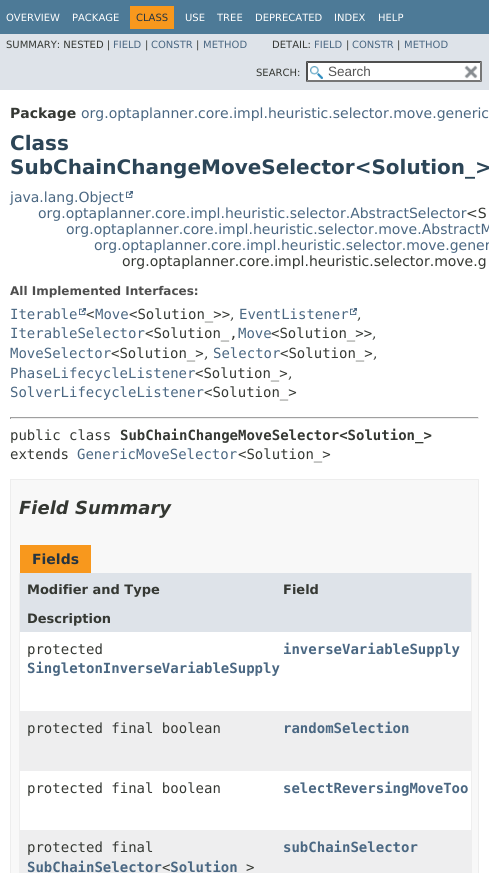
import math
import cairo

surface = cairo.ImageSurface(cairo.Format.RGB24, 489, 873)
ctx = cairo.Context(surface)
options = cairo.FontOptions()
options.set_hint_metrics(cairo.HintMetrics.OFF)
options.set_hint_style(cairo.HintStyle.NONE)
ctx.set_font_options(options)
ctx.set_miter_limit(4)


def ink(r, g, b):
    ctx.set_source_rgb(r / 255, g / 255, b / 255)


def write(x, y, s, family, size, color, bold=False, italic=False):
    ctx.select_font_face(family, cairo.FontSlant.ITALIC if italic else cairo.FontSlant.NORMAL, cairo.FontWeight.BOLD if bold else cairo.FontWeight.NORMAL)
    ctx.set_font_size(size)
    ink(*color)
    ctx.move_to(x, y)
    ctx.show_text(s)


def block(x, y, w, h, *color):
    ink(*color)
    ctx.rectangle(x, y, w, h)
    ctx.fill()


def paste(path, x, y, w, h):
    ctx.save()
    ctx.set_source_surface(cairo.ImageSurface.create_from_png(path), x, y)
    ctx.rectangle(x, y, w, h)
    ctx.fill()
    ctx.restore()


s1 = dict(family="DejaVu Sans", size=10, color=(255, 255, 255))
s2 = dict(family="DejaVu Sans", size=10, color=(37, 52, 65))
s3 = dict(family="DejaVu Sans", size=10, color=(53, 56, 51))
s4 = dict(family="DejaVu Sans", size=10, color=(74, 103, 130))
s5 = dict(family="Liberation Sans", size=13.5, color=(84, 84, 84))
s6 = dict(family="DejaVu Sans", size=14, color=(53, 56, 51), bold=True)
s7 = dict(family="DejaVu Sans", size=14, color=(74, 103, 130))
s8 = dict(family="DejaVu Sans", size=20, color=(44, 69, 87), bold=True)
s9 = dict(family="DejaVu Sans", size=14, color=(53, 56, 51))
s10 = dict(family="DejaVu Sans", size=12, color=(78, 78, 78), bold=True)
s11 = dict(family="DejaVu Sans Mono", size=14, color=(74, 103, 130))
s12 = dict(family="DejaVu Sans Mono", size=14, color=(53, 56, 51))
s13 = dict(family="DejaVu Serif", size=14, color=(53, 56, 51))
s14 = dict(family="DejaVu Sans Mono", size=14, color=(53, 56, 51), bold=True)
s15 = dict(family="DejaVu Sans", size=18, color=(53, 56, 51), bold=True, italic=True)
s16 = dict(family="DejaVu Sans", size=14, color=(37, 52, 65), bold=True)
s17 = dict(family="DejaVu Sans", size=13, color=(53, 56, 51), bold=True)
s18 = dict(family="DejaVu Sans Mono", size=14, color=(74, 103, 130), bold=True)

ink(255, 255, 255)
ctx.paint()
block(0, 0, 489, 34, 77, 122, 151)
write(6, 21, "OVERVIEW", **s1)
write(72, 21, "PACKAGE", **s1)
block(130, 6, 44, 23, 248, 152, 29)
write(136, 21, "CLASS", **s2)
write(185, 21, "USE", **s1)
write(217, 21, "TREE", **s1)
write(255, 21, "DEPRECATED", **s1)
write(334, 21, "INDEX", **s1)
write(378, 21, "HELP", **s1)
block(0, 34, 489, 56, 222, 227, 233)
write(6, 48, "SUMMARY: NESTED |", **s3)
write(113, 48, "FIELD", **s4)
write(145, 48, "|", **s3)
write(151, 48, "CONSTR", **s4)
write(196, 48, "|", **s3)
write(203, 48, "METHOD", **s4)
write(272, 48, "DETAIL:", **s3)
write(314, 48, "FIELD", **s4)
write(346, 48, "|", **s3)
write(352, 48, "CONSTR", **s4)
write(397, 48, "|", **s3)
write(404, 48, "METHOD", **s4)
write(256, 76, "SEARCH:", **s3)
block(306, 61, 176, 21, 255, 255, 255)
paste("pic1.png", 310, 66, 13, 13)
ink(79, 79, 79)
ctx.new_path()
ctx.move_to(306, 61)
ctx.line_to(482, 61)
ctx.line_to(480, 63)
ctx.line_to(308, 63)
ctx.close_path()
ctx.fill()
ink(118, 118, 118)
ctx.new_path()
ctx.move_to(482, 61)
ctx.line_to(482, 82)
ctx.line_to(480, 80)
ctx.line_to(480, 63)
ctx.close_path()
ctx.fill()
ctx.new_path()
ctx.move_to(482, 82)
ctx.line_to(306, 82)
ctx.line_to(308, 80)
ctx.line_to(480, 80)
ctx.close_path()
ctx.fill()
ink(79, 79, 79)
ctx.new_path()
ctx.move_to(306, 82)
ctx.line_to(306, 61)
ctx.line_to(308, 63)
ctx.line_to(308, 80)
ctx.close_path()
ctx.fill()
write(328, 76, "Search", **s5)
paste("pic2.png", 464, 65, 14, 14)
write(10, 118, "Package", **s6)
write(81, 118, "org.optaplanner.core.impl.heuristic.selector.move.generic", **s7)
write(10, 150, "Class", **s8)
write(10, 174, "SubChainChangeMoveSelector<Solution_>", **s8)
write(10, 202, "java.lang.Object", **s7)
paste("pic3.png", 126, 191, 7, 7)
write(38, 218, "org.optaplanner.core.impl.heuristic.selector.AbstractSelector", **s7)
write(466, 218, "<S", **s9)
write(66, 234, "org.optaplanner.core.impl.heuristic.selector.move.AbstractM", **s7)
write(94, 250, "org.optaplanner.core.impl.heuristic.selector.move.gener", **s7)
write(122, 266, "org.optaplanner.core.impl.heuristic.selector.move.g", **s9)
write(10, 295, "All Implemented Interfaces:", **s10)
write(10, 319, "Iterable", **s11)
paste("pic3.png", 79, 308, 7, 7)
write(86, 319, "<", **s12)
write(95, 319, "Move", **s11)
write(129, 319, "<Solution_>>", **s12)
write(230, 319, ",", **s13)
write(239, 319, "EventListener", **s11)
paste("pic3.png", 350, 308, 7, 7)
write(357, 319, ",", **s13)
write(10, 338, "IterableSelector", **s11)
write(145, 338, "<Solution_,", **s12)
write(238, 338, "Move", **s11)
write(271, 338, "<Solution_>>", **s12)
write(372, 338, ",", **s13)
write(10, 358, "MoveSelector", **s11)
write(111, 358, "<Solution_>", **s12)
write(204, 358, ",", **s13)
write(213, 358, "Selector", **s11)
write(280, 358, "<Solution_>", **s12)
write(373, 358, ",", **s13)
write(10, 378, "PhaseLifecycleListener", **s11)
write(195, 378, "<Solution_>", **s12)
write(288, 378, ",", **s13)
write(10, 397, "SolverLifecycleListener", **s11)
write(204, 397, "<Solution_>", **s12)
block(10, 417, 469, 1, 159, 159, 159)
block(478, 417, 1, 2, 238, 238, 238)
block(10, 418, 469, 1, 238, 238, 238)
block(10, 417, 1, 2, 159, 159, 159)
write(10, 440, "public class", **s12)
write(120, 440, "SubChainChangeMoveSelector<Solution_>", **s14)
write(10, 459, "extends", **s12)
write(77, 459, "GenericMoveSelector", **s11)
write(238, 459, "<Solution_>", **s12)
ink(248, 248, 248)
ctx.rectangle(10.5, 479.5, 468, 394)
ctx.fill_preserve()
ink(237, 237, 237)
ctx.set_line_width(1)
ctx.stroke()
write(19, 514, "Field Summary", **s15)
block(20, 545, 71, 28, 248, 152, 29)
write(32, 564, "Fields", **s16)
block(471, 573, 1, 300, 238, 238, 238)
block(19, 573, 1, 300, 238, 238, 238)
block(20, 573, 451, 29, 222, 227, 233)
write(27, 594, "Modifier and Type", **s17)
write(283, 594, "Field", **s17)
block(20, 602, 451, 30, 222, 227, 233)
write(27, 623, "Description", **s17)
block(20, 632, 451, 50, 255, 255, 255)
write(27, 654, "protected", **s12)
write(27, 673, "SingletonInverseVariableSupply", **s18)
write(283, 654, "inverseVariableSupply", **s18)
block(20, 682, 451, 29, 255, 255, 255)
block(20, 711, 451, 30, 238, 238, 239)
write(27, 733, "protected final boolean", **s12)
write(283, 733, "randomSelection", **s18)
block(20, 741, 451, 30, 238, 238, 239)
block(20, 771, 451, 30, 255, 255, 255)
write(27, 793, "protected final boolean", **s12)
write(283, 793, "selectReversingMoveToo", **s18)
block(20, 801, 451, 29, 255, 255, 255)
block(20, 830, 451, 43, 238, 238, 239)
write(27, 852, "protected final", **s12)
write(27, 872, "SubChainSelector Solution", **s18)
write(162, 872, "<", **s12)
write(246, 872, ">", **s12)
write(283, 852, "subChainSelector", **s18)
surface.write_to_png("screenshot.png")
